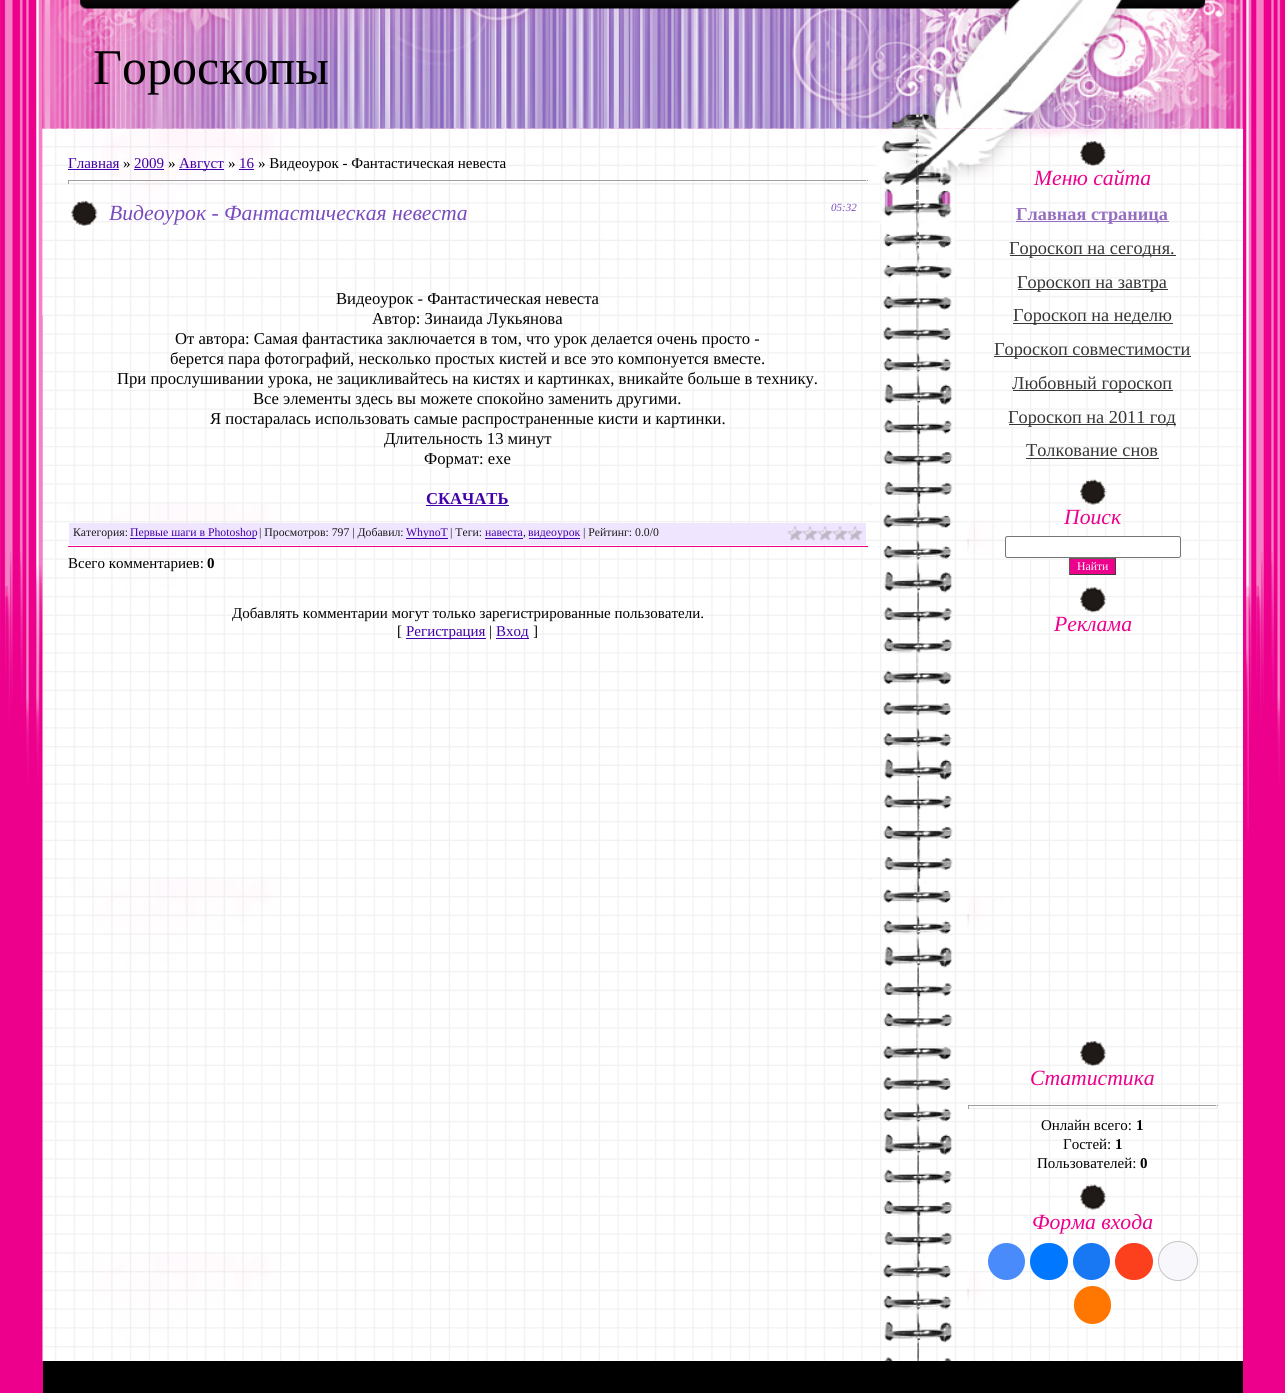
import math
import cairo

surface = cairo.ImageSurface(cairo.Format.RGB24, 1285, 1393)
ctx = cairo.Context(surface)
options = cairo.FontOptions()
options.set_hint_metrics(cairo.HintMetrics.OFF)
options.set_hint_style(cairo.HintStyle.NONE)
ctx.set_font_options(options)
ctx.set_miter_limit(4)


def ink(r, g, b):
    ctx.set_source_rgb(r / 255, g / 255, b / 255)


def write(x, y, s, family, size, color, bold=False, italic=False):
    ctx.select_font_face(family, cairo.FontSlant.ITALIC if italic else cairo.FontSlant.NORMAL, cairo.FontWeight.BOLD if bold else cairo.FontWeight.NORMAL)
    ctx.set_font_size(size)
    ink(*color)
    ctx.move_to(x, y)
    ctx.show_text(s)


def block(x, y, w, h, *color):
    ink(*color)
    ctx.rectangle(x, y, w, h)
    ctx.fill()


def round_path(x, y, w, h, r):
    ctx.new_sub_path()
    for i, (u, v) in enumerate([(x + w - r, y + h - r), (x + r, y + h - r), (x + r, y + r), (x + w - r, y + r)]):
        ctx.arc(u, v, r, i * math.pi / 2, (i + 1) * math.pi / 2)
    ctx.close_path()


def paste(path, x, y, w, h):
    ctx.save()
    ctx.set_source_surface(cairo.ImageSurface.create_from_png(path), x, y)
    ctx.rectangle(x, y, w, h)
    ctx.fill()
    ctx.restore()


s1 = dict(family="Liberation Serif", size=50, color=(0, 0, 0))
s2 = dict(family="Liberation Serif", size=15, color=(67, 0, 168))
s3 = dict(family="Liberation Serif", size=15, color=(0, 0, 0))
s4 = dict(family="Liberation Serif", size=21.7, color=(121, 75, 190), italic=True)
s5 = dict(family="Liberation Serif", size=11, color=(121, 75, 190), italic=True)
s6 = dict(family="Liberation Serif", size=16.65, color=(0, 0, 0))
s7 = dict(family="Liberation Serif", size=16.65, color=(67, 0, 168), bold=True)
s8 = dict(family="Liberation Serif", size=11.75, color=(26, 26, 26))
s9 = dict(family="Liberation Serif", size=11.75, color=(67, 0, 168))
s10 = dict(family="Liberation Serif", size=15, color=(0, 0, 0), bold=True)
s11 = dict(family="Liberation Serif", size=21.7, color=(236, 0, 140), italic=True)
s12 = dict(family="Liberation Serif", size=18.25, color=(150, 110, 191), bold=True)
s13 = dict(family="Liberation Serif", size=18.25, color=(54, 54, 54))
s14 = dict(family="Liberation Serif", size=11.75, color=(255, 255, 255))

ink(236, 0, 140)
ctx.paint()
paste("pic1.png", 0, 0, 1281, 839)
block(1242, 129, 1, 1232, 255, 255, 255)
paste("pic3.png", 42, 128, 1201, 1233)
paste("pic4.png", 42, 128, 876, 188)
paste("pic7.png", 917, 128, 326, 188)
paste("pic2.png", 42, 0, 1201, 129)
write(93, 84, "Гороскопы", **s1)
write(68, 168, "Главная", **s2)
block(68, 169, 51, 1, 67, 0, 168)
write(123, 168, "»", **s3)
write(134, 168, "2009", **s2)
block(134, 169, 30, 1, 67, 0, 168)
write(168, 168, "»", **s3)
block(179, 169, 45, 1, 67, 0, 168)
write(179, 168, "Август", **s2)
write(228, 168, "»", **s3)
write(239, 168, "16", **s2)
block(239, 169, 15, 1, 67, 0, 168)
write(258, 168, "» Видеоурок - Фантастическая невеста", **s3)
block(68, 180, 800, 1, 159, 159, 159)
block(866, 180, 1, 4, 238, 238, 238)
block(68, 183, 800, 1, 238, 238, 238)
block(68, 180, 1, 4, 159, 159, 159)
block(68, 546, 800, 1, 236, 0, 140)
paste("pic5.png", 71, 201, 27, 25)
write(109, 220, "Видеоурок - Фантастическая невеста", **s4)
write(831, 211, "05:32", **s5)
write(336, 304, "Видеоурок - Фантастическая невеста", **s6)
write(372, 324, "Автор: Зинаида Лукьянова", **s6)
write(175, 344, "От автора: Самая фантастика заключается в том, что урок делается очень просто -", **s6)
write(170, 364, "берется пара фотографий, несколько простых кистей и все это компонуется вместе.", **s6)
write(117, 384, "При прослушивании урока, не зацикливайтесь на кистях и картинках, вникайте больше в технику.", **s6)
write(253, 404, "Все элементы здесь вы можете спокойно заменить другими.", **s6)
write(210, 424, "Я постаралась использовать самые распространенные кисти и картинки.", **s6)
write(384, 444, "Длительность 13 минут", **s6)
write(424, 464, "Формат: ехе", **s6)
write(426, 504, "СКАЧАТЬ", **s7)
block(426, 505, 83, 1, 67, 0, 168)
block(69, 523, 797, 22, 240, 229, 255)
write(73, 536, "Категория:", **s8)
block(130, 538, 126, 1, 67, 0, 168)
write(130, 536, "Первые шаги в Photoshop", **s9)
write(259, 536, "| Просмотров: 797 | Добавил:", **s8)
block(406, 538, 42, 1, 67, 0, 168)
write(406, 536, "WhynoT", **s9)
write(450, 536, "| Теги:", **s8)
write(485, 536, "навеста", **s9)
write(523, 536, ",", **s8)
block(485, 538, 38, 1, 67, 0, 168)
block(529, 538, 51, 1, 67, 0, 168)
write(528, 536, "видеоурок", **s9)
write(583, 536, "| Рейтинг: 0.0/0", **s8)
paste("pic6.png", 787, 526, 76, 15)
write(68, 568, "Всего комментариев:", **s3)
write(207, 568, "0", **s10)
write(232, 618, "Добавлять комментарии могут только зарегистрированные пользователи.", **s3)
write(397, 636, "[", **s3)
block(406, 638, 80, 1, 67, 0, 168)
write(406, 636, "Регистрация", **s2)
write(489, 636, "|", **s3)
block(496, 638, 33, 1, 67, 0, 168)
write(496, 636, "Вход", **s2)
write(533, 636, "]", **s3)
paste("pic8.png", 1080, 141, 27, 25)
write(1034, 185, "Меню сайта", **s11)
block(1016, 221, 153, 1, 150, 110, 191)
write(1016, 220, "Главная страница", **s12)
block(1010, 255, 166, 1, 54, 54, 54)
write(1009, 254, "Гороскоп на сегодня.", **s13)
block(1018, 289, 150, 1, 54, 54, 54)
write(1017, 288, "Гороскоп на завтра", **s13)
block(1013, 323, 160, 1, 54, 54, 54)
write(1013, 321, "Гороскоп на неделю", **s13)
block(994, 356, 197, 1, 54, 54, 54)
write(994, 355, "Гороскоп совместимости", **s13)
block(1013, 390, 160, 1, 54, 54, 54)
write(1012, 389, "Любовный гороскоп", **s13)
block(1009, 424, 167, 1, 54, 54, 54)
write(1008, 423, "Гороскоп на 2011 год", **s13)
write(1026, 456, "Толкование снов", **s13)
block(1026, 458, 133, 1, 54, 54, 54)
paste("pic9.png", 1080, 479, 27, 26)
write(1064, 524, "Поиск", **s11)
ink(255, 255, 255)
round_path(1005.5, 536.5, 175, 21, 2)
ctx.fill_preserve()
ink(118, 118, 118)
ctx.set_line_width(1)
ctx.stroke()
block(1070, 559, 45, 15, 236, 0, 140)
block(1069, 558, 47, 1, 97, 94, 88)
block(1115, 558, 1, 17, 65, 63, 59)
block(1069, 574, 47, 1, 65, 63, 59)
block(1069, 558, 1, 17, 97, 94, 88)
write(1077, 570, "Найти", **s14)
paste("pic10.png", 1080, 587, 27, 26)
write(1054, 631, "Реклама", **s11)
paste("pic11.png", 1080, 1041, 27, 25)
write(1030, 1085, "Статистика", **s11)
block(968, 1105, 250, 1, 159, 159, 159)
block(1216, 1105, 1, 4, 238, 238, 238)
block(968, 1108, 250, 1, 238, 238, 238)
block(968, 1105, 1, 4, 159, 159, 159)
write(1041, 1130, "Онлайн всего:", **s3)
write(1136, 1130, "1", **s10)
write(1063, 1149, "Гостей:", **s3)
write(1115, 1149, "1", **s10)
write(1037, 1168, "Пользователей:", **s3)
write(1140, 1168, "0", **s10)
paste("pic12.png", 1080, 1184, 27, 26)
write(1032, 1229, "Форма входа", **s11)
ink(73, 139, 250)
ctx.new_path()
ctx.arc(1006.5, 1261.5, 18.5, 0, 2 * math.pi)
ctx.fill()
ink(0, 119, 255)
round_path(1030, 1243, 38, 37, 18.5)
ctx.fill()
ink(24, 119, 242)
ctx.arc(1091.5, 1261.5, 18.5, 0, 2 * math.pi)
ctx.fill()
ink(252, 63, 29)
round_path(1115, 1243, 38, 37, 18.5)
ctx.fill()
ink(248, 248, 252)
ctx.arc(1178, 1261, 19.5, 0, 2 * math.pi)
ctx.fill_preserve()
ink(196, 196, 196)
ctx.stroke()
ink(255, 119, 0)
round_path(1074, 1286, 37, 38, 18.5)
ctx.fill()
block(43, 1361, 1200, 32, 0, 0, 0)
surface.write_to_png("screenshot.png")
